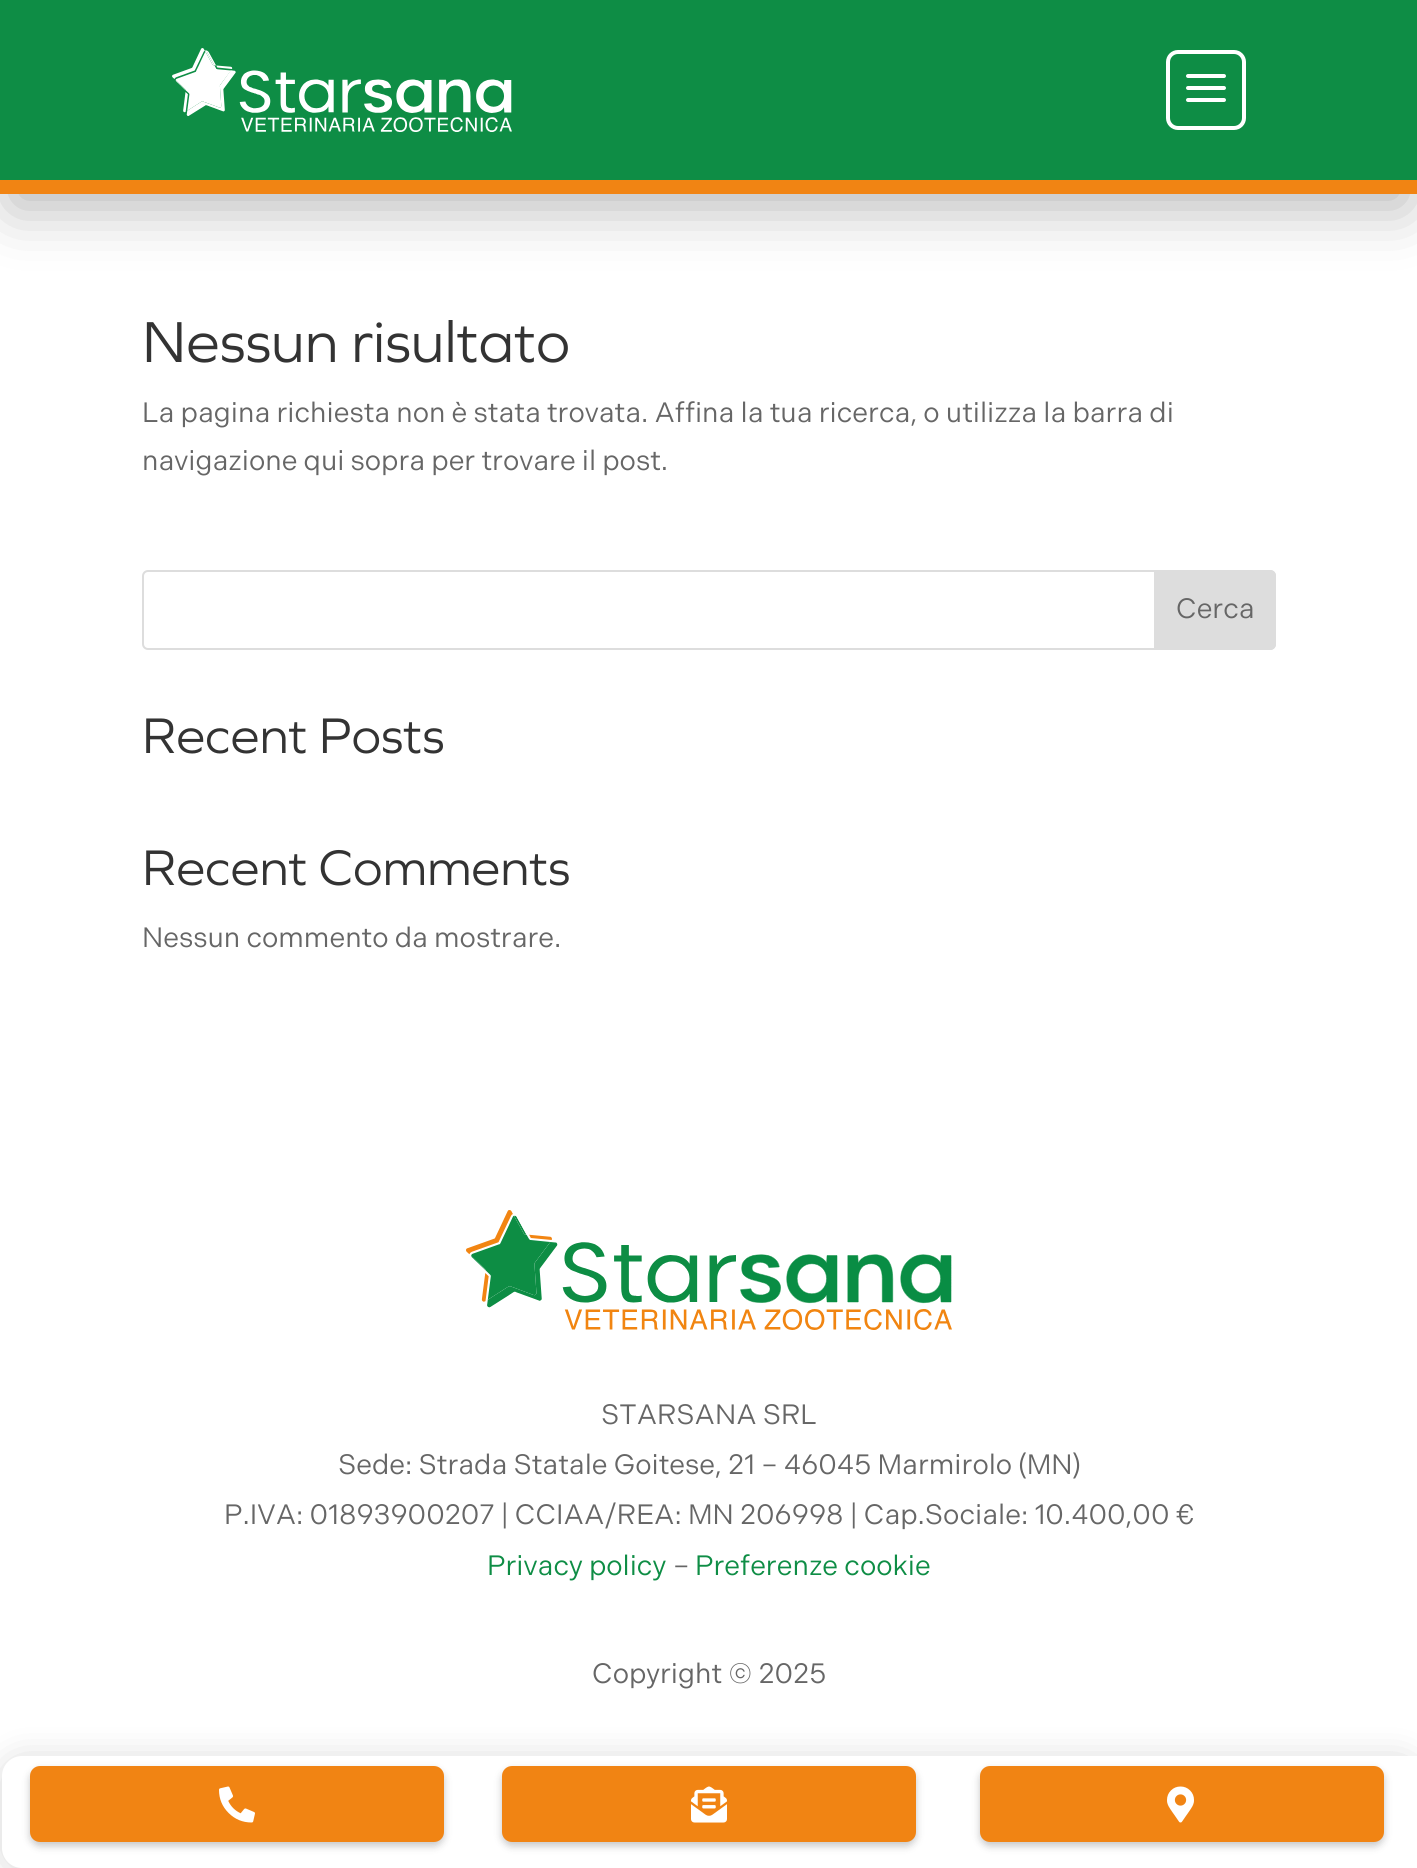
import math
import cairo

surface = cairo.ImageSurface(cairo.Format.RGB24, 1417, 1868)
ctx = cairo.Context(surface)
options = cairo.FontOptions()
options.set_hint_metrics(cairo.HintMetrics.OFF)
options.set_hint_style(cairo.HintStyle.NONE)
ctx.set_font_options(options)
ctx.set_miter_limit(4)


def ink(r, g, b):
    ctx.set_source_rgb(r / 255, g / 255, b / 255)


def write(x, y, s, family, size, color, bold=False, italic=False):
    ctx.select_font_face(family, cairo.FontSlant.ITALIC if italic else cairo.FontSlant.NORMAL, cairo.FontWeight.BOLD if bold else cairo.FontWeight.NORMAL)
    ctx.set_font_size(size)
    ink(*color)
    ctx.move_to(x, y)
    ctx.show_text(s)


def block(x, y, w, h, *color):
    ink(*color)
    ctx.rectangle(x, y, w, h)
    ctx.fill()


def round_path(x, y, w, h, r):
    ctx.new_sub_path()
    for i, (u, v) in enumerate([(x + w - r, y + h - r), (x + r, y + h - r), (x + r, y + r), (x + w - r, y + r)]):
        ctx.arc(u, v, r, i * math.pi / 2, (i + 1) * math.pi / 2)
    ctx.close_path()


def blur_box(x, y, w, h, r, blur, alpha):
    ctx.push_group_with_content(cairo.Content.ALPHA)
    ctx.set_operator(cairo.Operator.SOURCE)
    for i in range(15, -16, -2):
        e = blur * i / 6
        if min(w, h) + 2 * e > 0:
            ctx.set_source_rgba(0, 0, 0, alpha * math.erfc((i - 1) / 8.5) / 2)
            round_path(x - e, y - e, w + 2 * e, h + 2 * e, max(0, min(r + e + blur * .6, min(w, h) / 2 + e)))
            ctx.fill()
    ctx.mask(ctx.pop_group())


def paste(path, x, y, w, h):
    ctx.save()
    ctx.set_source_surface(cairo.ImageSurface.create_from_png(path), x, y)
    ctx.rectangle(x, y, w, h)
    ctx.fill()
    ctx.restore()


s1 = dict(family="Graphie", size=60, color=(51, 51, 51))
s2 = dict(family="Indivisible", size=28, color=(102, 102, 102))
s3 = dict(family="Graphie", size=52, color=(51, 51, 51))
s4 = dict(family="Indivisible", size=28, color=(14, 141, 69))

ink(255, 255, 255)
ctx.paint()
ink(0, 0, 0)
blur_box(12, 36, 1394, 170, 0, 30, 0.3)
block(0, 0, 1417, 180, 14, 141, 69)
block(0, 180, 1417, 14, 241, 132, 19)
paste("pic1.png", 172, 48, 340, 84)
round_path(1168, 52, 76, 76, 10)
ink(255, 255, 255)
ctx.set_line_width(4)
ctx.stroke()
paste("pic2.png", 1186, 74, 40, 28)
write(142, 362, "Nessun risultato", **s1)
write(142, 422, "La pagina richiesta non è stata trovata. Affina la tua ricerca, o utilizza la barra di", **s2)
write(142, 470, "navigazione qui sopra per trovare il post.", **s2)
round_path(143, 571, 1132, 78, 5)
ink(221, 221, 221)
ctx.set_line_width(2)
ctx.stroke()
ctx.new_path()
ctx.move_to(1155, 571)
ctx.line_to(1270, 571)
ctx.curve_to(1273, 571, 1275, 573, 1275, 576)
ctx.line_to(1275, 644)
ctx.curve_to(1275, 647, 1273, 649, 1270, 649)
ctx.line_to(1155, 649)
ctx.close_path()
ctx.fill_preserve()
ctx.stroke()
write(1176, 618, "Cerca", **s2)
write(142, 753, "Recent Posts", **s3)
write(142, 885, "Recent Comments", **s3)
write(142, 947, "Nessun commento da mostrare.", **s2)
paste("pic3.png", 466, 1210, 486, 120)
write(601, 1424, "STARSANA SRL", **s2)
write(338, 1474, "Sede: Strada Statale Goitese, 21 – 46045 Marmirolo (MN)", **s2)
write(224, 1524, "P.IVA: 01893900207 | CCIAA/REA: MN 206998 | Cap.Sociale: 10.400,00 €", **s2)
write(487, 1575, "Privacy policy", **s4)
write(673, 1575, "–", **s2)
write(695, 1575, "Preferenze cookie", **s4)
write(592, 1683, "Copyright © 2025", **s2)
ink(0, 0, 0)
blur_box(2, 1760, 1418, 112, 20, 18, 0.16)
ink(255, 255, 255)
ctx.new_path()
ctx.move_to(22, 1756)
ctx.line_to(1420, 1756)
ctx.line_to(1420, 1868)
ctx.line_to(22, 1868)
ctx.curve_to(11, 1868, 2, 1859, 2, 1848)
ctx.line_to(2, 1776)
ctx.curve_to(2, 1765, 11, 1756, 22, 1756)
ctx.close_path()
ctx.fill()
ink(0, 0, 0)
blur_box(30, 1770, 414, 76, 10, 4, 0.22)
ink(241, 132, 19)
round_path(30, 1766, 414, 76, 10)
ctx.fill()
paste("pic4.png", 219, 1786, 36, 37)
ink(0, 0, 0)
blur_box(502, 1770, 414, 76, 10, 4, 0.22)
ink(241, 132, 19)
round_path(502, 1766, 414, 76, 10)
ctx.fill()
paste("pic5.png", 691, 1786, 36, 37)
ink(0, 0, 0)
blur_box(980, 1770, 404, 76, 10, 4, 0.22)
ink(241, 132, 19)
round_path(980, 1766, 404, 76, 10)
ctx.fill()
paste("pic6.png", 1167, 1786, 27, 37)
surface.write_to_png("screenshot.png")
